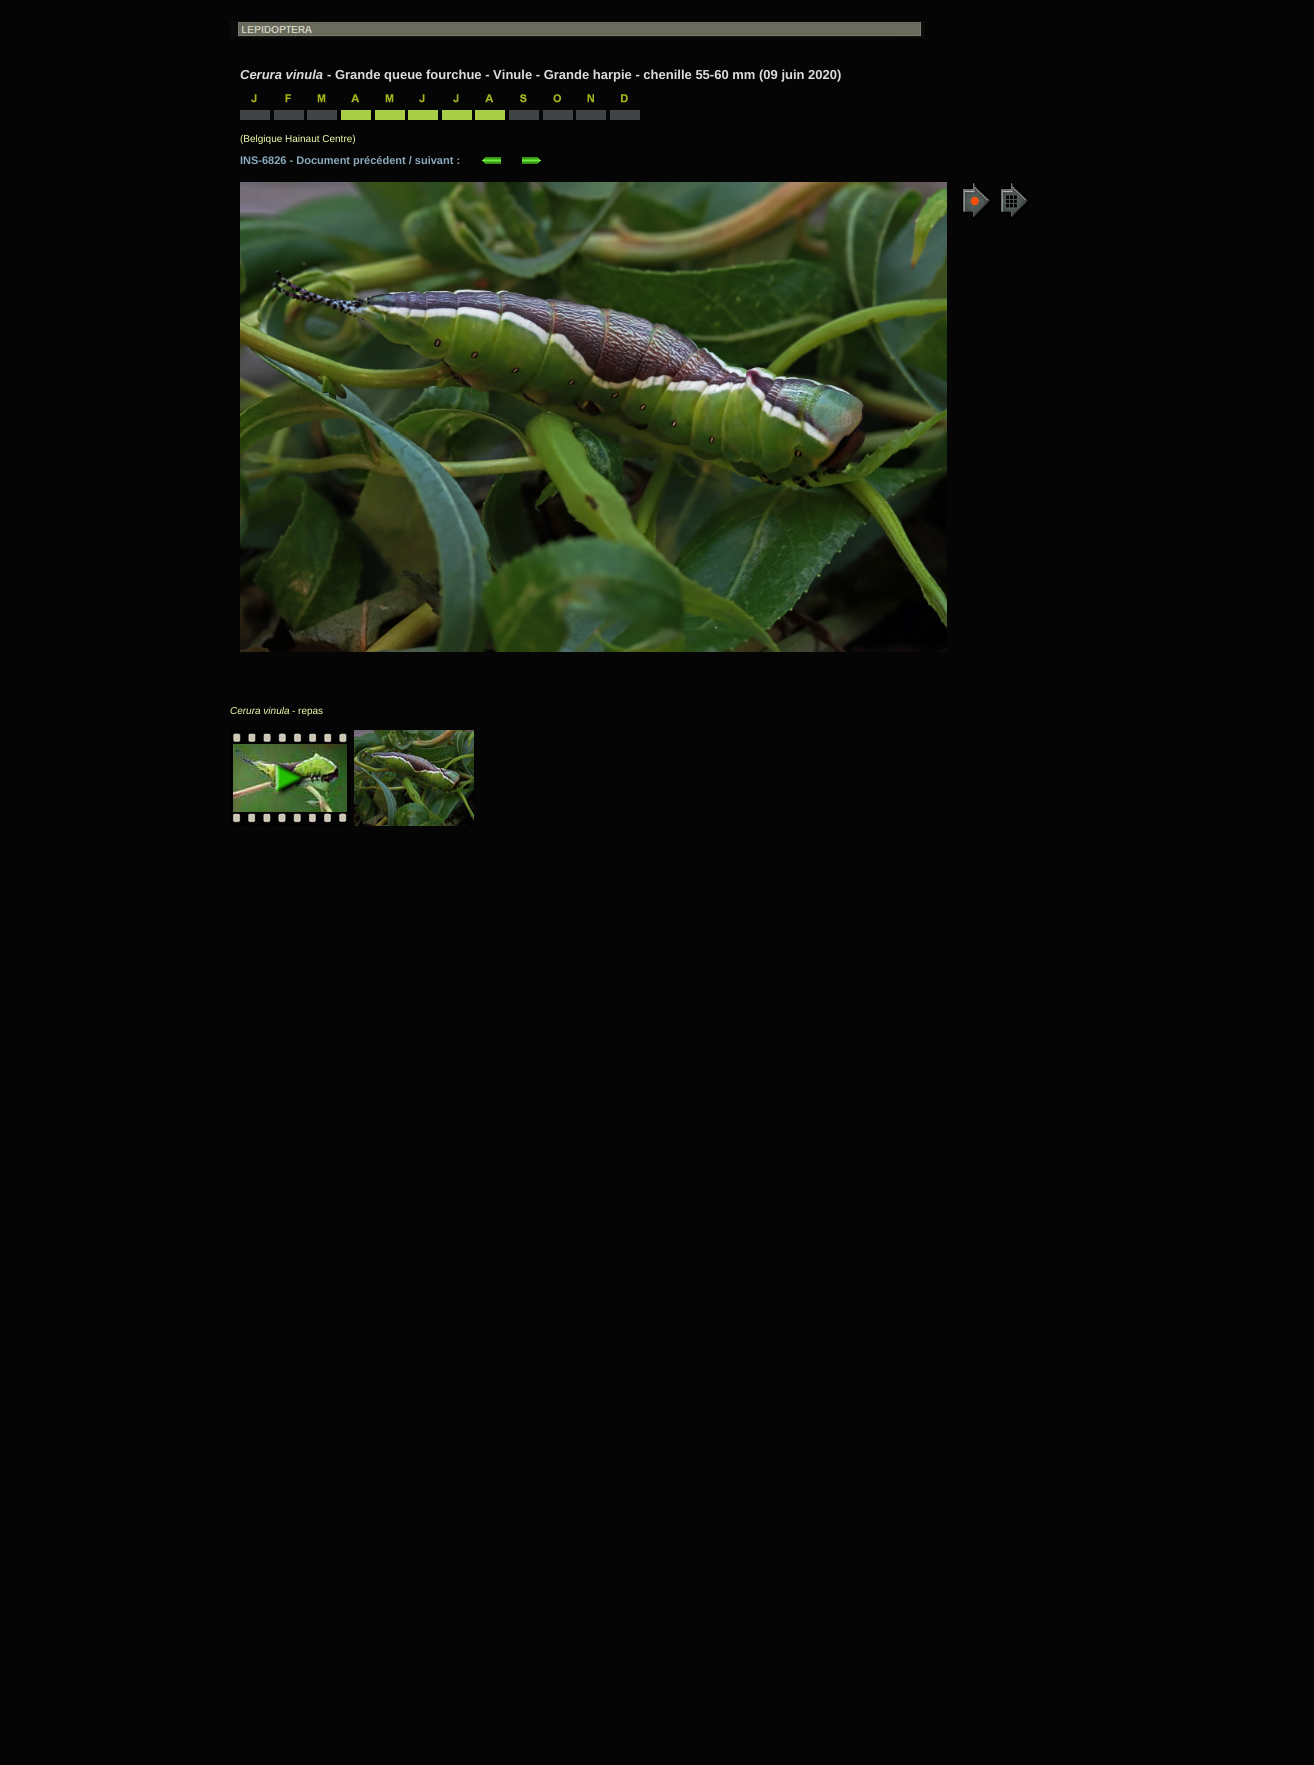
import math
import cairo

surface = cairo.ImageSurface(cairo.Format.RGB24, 1314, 1765)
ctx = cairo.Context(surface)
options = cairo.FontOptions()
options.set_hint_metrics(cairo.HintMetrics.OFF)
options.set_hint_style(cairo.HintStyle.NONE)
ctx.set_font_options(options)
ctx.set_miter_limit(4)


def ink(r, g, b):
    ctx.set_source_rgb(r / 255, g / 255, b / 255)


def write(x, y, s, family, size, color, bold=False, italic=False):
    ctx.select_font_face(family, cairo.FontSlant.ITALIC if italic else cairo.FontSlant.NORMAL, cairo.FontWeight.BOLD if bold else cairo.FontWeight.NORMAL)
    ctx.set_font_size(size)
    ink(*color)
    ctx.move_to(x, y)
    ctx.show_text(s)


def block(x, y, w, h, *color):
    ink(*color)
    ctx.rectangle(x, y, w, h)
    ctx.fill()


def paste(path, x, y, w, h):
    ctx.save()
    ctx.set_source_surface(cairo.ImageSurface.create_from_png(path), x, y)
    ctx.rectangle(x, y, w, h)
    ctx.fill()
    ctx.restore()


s1 = dict(family="Liberation Sans", size=13, color=(221, 221, 221), bold=True, italic=True)
s2 = dict(family="Liberation Sans", size=13, color=(221, 221, 221), bold=True)
s3 = dict(family="Liberation Sans", size=10, color=(238, 255, 170))
s4 = dict(family="Liberation Sans", size=11, color=(137, 170, 188), bold=True)
s5 = dict(family="Liberation Sans", size=10, color=(238, 255, 170), italic=True)

ink(5, 5, 5)
ctx.paint()
paste("pic1.png", 230, 21, 695, 17)
write(240, 79, "Cerura vinula", **s1)
write(327, 79, "- Grande queue fourchue - Vinule - Grande harpie - chenille 55-60 mm (09 juin 2020)", **s2)
paste("pic2.png", 251, 94, 6, 9)
paste("pic3.png", 285, 93, 9, 10)
paste("pic4.png", 317, 94, 13, 9)
paste("pic5.png", 351, 93, 9, 10)
paste("pic4.png", 385, 94, 13, 9)
paste("pic2.png", 419, 94, 6, 9)
paste("pic2.png", 453, 94, 6, 9)
paste("pic5.png", 485, 93, 9, 10)
paste("pic6.png", 520, 94, 7, 9)
paste("pic7.png", 553, 94, 8, 9)
paste("pic8.png", 587, 94, 10, 9)
paste("pic9.png", 620, 94, 12, 9)
block(240, 110, 30, 10, 64, 68, 71)
block(274, 110, 30, 10, 64, 68, 71)
block(307, 110, 30, 10, 64, 68, 71)
block(341, 110, 30, 10, 169, 205, 69)
block(375, 110, 30, 10, 169, 205, 69)
block(408, 110, 30, 10, 169, 205, 69)
block(442, 110, 30, 10, 169, 205, 69)
block(475, 110, 30, 10, 169, 205, 69)
block(509, 110, 30, 10, 64, 68, 71)
block(543, 110, 30, 10, 64, 68, 71)
block(576, 110, 30, 10, 64, 68, 71)
block(610, 110, 30, 10, 64, 68, 71)
write(240, 142, "(Belgique Hainaut Centre)", **s3)
write(240, 164, "INS-6826 - Document précédent / suivant :", **s4)
paste("pic10.png", 482, 157, 19, 7)
paste("pic11.png", 522, 157, 19, 7)
paste("pic12.png", 240, 182, 707, 470)
paste("pic13.png", 962, 182, 30, 38)
paste("pic14.png", 1000, 182, 30, 38)
write(230, 714, "Cerura vinula", **s5)
write(292, 714, "- repas", **s3)
paste("pic15.png", 230, 730, 120, 96)
paste("pic16.png", 354, 730, 120, 96)
surface.write_to_png("screenshot.png")
